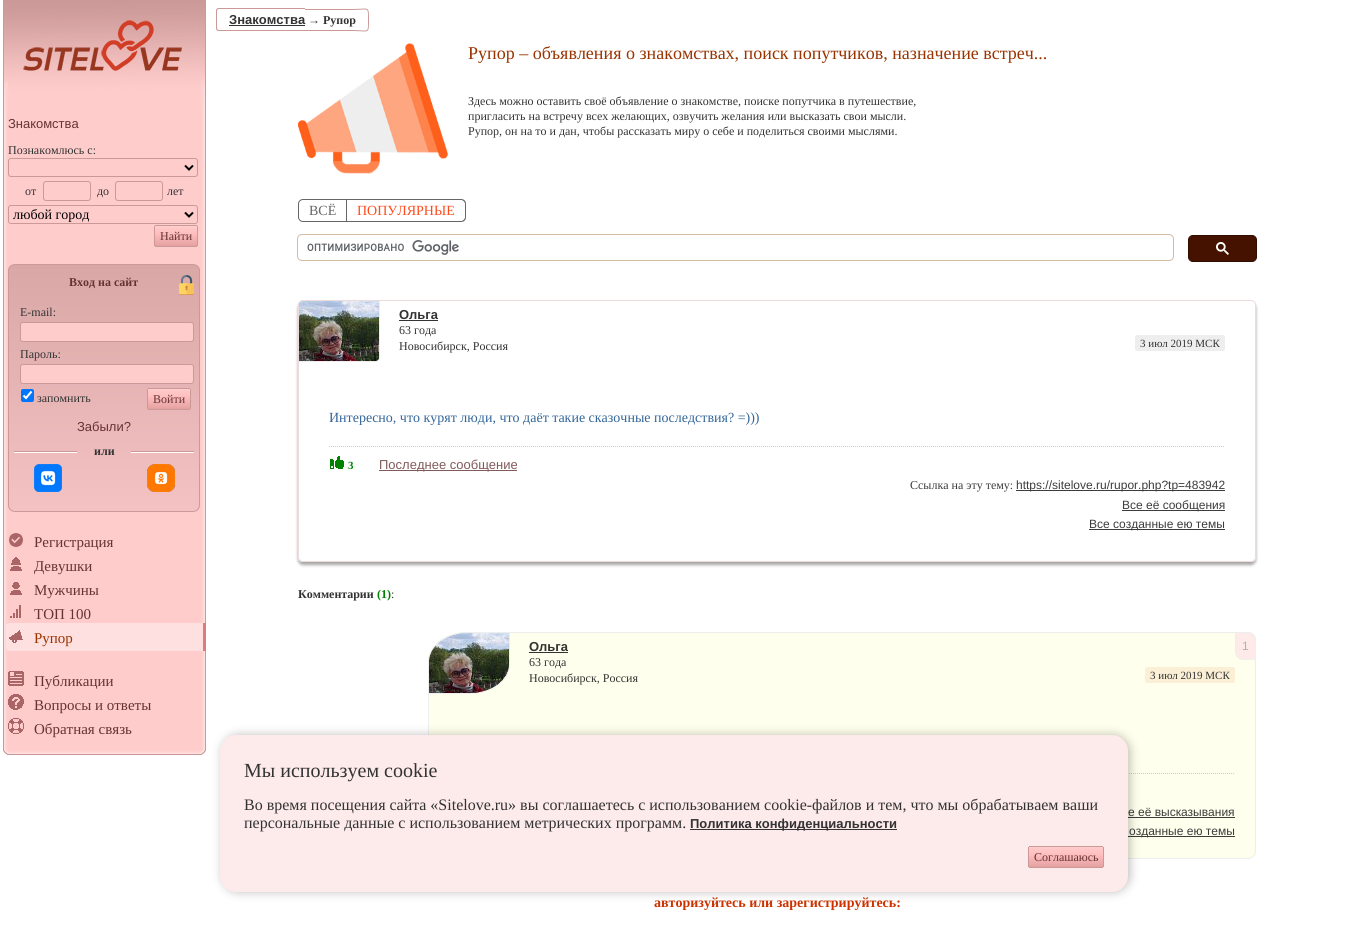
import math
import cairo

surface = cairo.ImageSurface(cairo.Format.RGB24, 1348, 932)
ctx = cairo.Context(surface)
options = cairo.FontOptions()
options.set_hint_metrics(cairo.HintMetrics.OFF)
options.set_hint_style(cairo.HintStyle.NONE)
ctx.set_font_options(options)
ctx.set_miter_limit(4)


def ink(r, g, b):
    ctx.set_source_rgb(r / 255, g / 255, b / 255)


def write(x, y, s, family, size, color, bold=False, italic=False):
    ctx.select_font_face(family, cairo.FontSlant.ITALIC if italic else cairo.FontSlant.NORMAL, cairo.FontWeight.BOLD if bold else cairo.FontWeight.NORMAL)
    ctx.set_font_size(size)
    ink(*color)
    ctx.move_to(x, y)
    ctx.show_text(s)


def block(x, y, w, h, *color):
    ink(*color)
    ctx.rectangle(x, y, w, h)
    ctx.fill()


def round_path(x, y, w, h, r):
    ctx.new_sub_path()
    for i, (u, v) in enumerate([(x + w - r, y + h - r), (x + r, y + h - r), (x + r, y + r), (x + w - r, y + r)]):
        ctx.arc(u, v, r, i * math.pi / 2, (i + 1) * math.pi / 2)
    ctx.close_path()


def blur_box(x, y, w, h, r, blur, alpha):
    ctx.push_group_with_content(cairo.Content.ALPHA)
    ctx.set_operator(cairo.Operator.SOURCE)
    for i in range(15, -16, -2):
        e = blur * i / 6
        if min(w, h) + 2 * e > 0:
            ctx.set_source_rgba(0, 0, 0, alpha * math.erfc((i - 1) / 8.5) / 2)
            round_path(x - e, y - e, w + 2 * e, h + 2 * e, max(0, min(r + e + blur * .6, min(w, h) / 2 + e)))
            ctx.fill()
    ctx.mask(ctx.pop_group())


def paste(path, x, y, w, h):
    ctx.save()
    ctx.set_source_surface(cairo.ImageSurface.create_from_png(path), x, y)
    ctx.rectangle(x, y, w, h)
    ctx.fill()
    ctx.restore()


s1 = dict(family="Liberation Sans", size=13, color=(102, 51, 51))
s2 = dict(family="Liberation Serif", size=12, color=(51, 51, 51))
s3 = dict(family="Liberation Serif", size=14, color=(0, 0, 0))
s4 = dict(family="Liberation Serif", size=12, color=(102, 51, 51))
s5 = dict(family="Liberation Serif", size=12, color=(102, 51, 51), bold=True)
s6 = dict(family="Liberation Serif", size=12, color=(51, 51, 51), bold=True)
s7 = dict(family="Liberation Serif", size=15, color=(102, 51, 51))
s8 = dict(family="Liberation Serif", size=15, color=(153, 51, 0))
s9 = dict(family="Liberation Sans", size=13, color=(51, 51, 51), bold=True)
s10 = dict(family="Liberation Serif", size=18, color=(153, 51, 0))
s11 = dict(family="Liberation Serif", size=14, color=(102, 102, 102))
s12 = dict(family="Liberation Serif", size=14, color=(255, 75, 27))
s13 = dict(family="Liberation Serif", size=11, color=(51, 51, 51))
s14 = dict(family="Liberation Serif", size=14, color=(51, 102, 153))
s15 = dict(family="Liberation Serif", size=11, color=(0, 128, 0), bold=True)
s16 = dict(family="Liberation Sans", size=13, color=(129, 90, 90))
s17 = dict(family="Liberation Serif", size=12, color=(60, 60, 60))
s18 = dict(family="Liberation Sans", size=12, color=(60, 60, 60))
s19 = dict(family="Liberation Serif", size=12, color=(0, 128, 0), bold=True)
s20 = dict(family="Liberation Sans", size=12, color=(176, 176, 176))
s21 = dict(family="Liberation Serif", size=14, color=(204, 51, 0), bold=True)
s22 = dict(family="Liberation Serif", size=20, color=(51, 51, 51))
s23 = dict(family="Liberation Serif", size=16, color=(51, 51, 51))

ink(255, 255, 255)
ctx.paint()
paste("pic1.png", 3, 0, 203, 106)
paste("pic2.png", 3, 106, 203, 644)
write(8, 128, "Знакомства", **s1)
write(8, 154, "Познакомлюсь с:", **s2)
round_path(8.5, 158.5, 189, 18, 2.5)
ink(204, 153, 153)
ctx.set_line_width(1)
ctx.stroke()
ctx.new_path()
ctx.move_to(185, 165.5)
ctx.line_to(189, 169.5)
ctx.line_to(193, 165.5)
ink(0, 0, 0)
ctx.set_line_width(2)
ctx.stroke()
write(25, 195, "от", **s2)
round_path(43.5, 181.5, 47, 19, 2.5)
ink(204, 153, 153)
ctx.set_line_width(1)
ctx.stroke()
write(97, 195, "до", **s2)
round_path(115.5, 181.5, 47, 19, 2.5)
ink(204, 153, 153)
ctx.stroke()
write(167, 195, "лет", **s2)
round_path(8.5, 205.5, 189, 18, 2.5)
ink(204, 153, 153)
ctx.stroke()
ctx.new_path()
ctx.move_to(185, 212.5)
ctx.line_to(189, 216.5)
ctx.line_to(193, 212.5)
ink(0, 0, 0)
ctx.set_line_width(2)
ctx.stroke()
write(13, 219, "любой город", **s3)
paste("pic3.png", 155, 228, 42, 18)
write(160, 240, "Найти", **s4)
block(197, 226, 1, 20, 204, 153, 153)
block(154, 226, 1, 20, 204, 153, 153)
block(155, 225, 42, 1, 204, 153, 153)
block(155, 246, 42, 1, 204, 153, 153)
ctx.save()
round_path(8, 264, 192, 248, 7)
ctx.clip()
gradient = cairo.LinearGradient(104, 265, 104, 511)
gradient.add_color_stop_rgba(0, 0.855, 0.655, 0.655, 1)
gradient.add_color_stop_rgba(1, 0.961, 0.761, 0.765, 1)
ctx.set_source(gradient)
ctx.rectangle(8, 265, 192, 246)
ctx.fill()
ctx.restore()
round_path(8.5, 264.5, 191, 247, 6.5)
ctx.set_line_width(1)
ctx.stroke()
write(69, 286, "Вход на сайт", **s5)
paste("pic4.png", 179, 275, 15, 20)
write(20, 316, "E-mail:", **s2)
ink(255, 204, 204)
round_path(20.5, 322.5, 173, 19, 2.5)
ctx.fill_preserve()
ink(204, 153, 153)
ctx.stroke()
write(20, 358, "Пароль:", **s2)
ink(255, 204, 204)
round_path(20.5, 364.5, 173, 19, 2.5)
ctx.fill_preserve()
ink(204, 153, 153)
ctx.stroke()
ink(0, 117, 255)
round_path(21, 389, 13, 13, 2)
ctx.fill()
ctx.new_path()
ctx.move_to(23.5, 395.5)
ctx.line_to(26, 398)
ctx.line_to(31.5, 391.5)
ink(255, 255, 255)
ctx.set_line_width(2.1)
ctx.stroke()
write(37, 402, "запомнить", **s2)
paste("pic5.png", 148, 389, 42, 20)
write(153, 403, "Войти", **s4)
block(190, 389, 1, 20, 204, 153, 153)
block(147, 389, 1, 20, 204, 153, 153)
block(148, 388, 42, 1, 204, 153, 153)
block(148, 409, 42, 1, 204, 153, 153)
write(77, 431, "Забыли?", **s1)
block(14, 451, 63, 1, 204, 153, 153)
block(14, 452, 63, 1, 255, 255, 255)
write(94, 455, "или", **s6)
block(131, 451, 63, 1, 204, 153, 153)
block(131, 452, 63, 1, 255, 255, 255)
paste("pic6.png", 34, 464, 28, 28)
paste("pic7.png", 147, 464, 28, 28)
paste("pic8.png", 9, 533, 14, 14)
write(34, 547, "Регистрация", **s7)
paste("pic9.png", 10, 557, 12, 14)
write(34, 571, "Девушки", **s7)
paste("pic10.png", 10, 582, 12, 13)
write(34, 595, "Мужчины", **s7)
paste("pic11.png", 10, 605, 11, 13)
write(34, 619, "ТОП 100", **s7)
ink(255, 224, 224)
ctx.new_path()
ctx.move_to(9, 623)
ctx.line_to(206, 623)
ctx.line_to(206, 651)
ctx.line_to(9, 651)
ctx.curve_to(7.5, 651, 6, 649.5, 6, 648)
ctx.line_to(6, 626)
ctx.curve_to(6, 624.5, 7.5, 623, 9, 623)
ctx.close_path()
ctx.fill()
block(203, 623, 3, 28, 219, 125, 125)
paste("pic12.png", 9, 630, 14, 13)
write(34, 643, "Рупор", **s8)
paste("pic13.png", 8, 671, 16, 15)
write(34, 686, "Публикации", **s7)
paste("pic14.png", 8, 694, 16, 16)
write(34, 710, "Вопросы и ответы", **s7)
paste("pic15.png", 8, 718, 16, 16)
write(34, 734, "Обратная связь", **s7)
paste("pic16.png", 3, 750, 203, 10)
ink(204, 153, 153)
ctx.set_fill_rule(cairo.FillRule.EVEN_ODD)
ctx.new_path()
ctx.move_to(219, 8)
ctx.line_to(305, 8)
ctx.line_to(305, 31)
ctx.line_to(219, 31)
ctx.curve_to(217, 31, 216, 30, 216, 28)
ctx.line_to(216, 11)
ctx.curve_to(216, 9, 217, 8, 219, 8)
ctx.close_path()
ctx.move_to(219, 9)
ctx.line_to(305, 9)
ctx.line_to(305, 30)
ctx.line_to(219, 30)
ctx.curve_to(218, 30, 217, 29, 217, 28)
ctx.line_to(217, 11)
ctx.curve_to(217, 10, 218, 9, 219, 9)
ctx.close_path()
ctx.fill()
write(229, 24, "Знакомства", **s9)
block(305, 9, 18, 1, 204, 153, 153)
block(229, 25, 76, 1, 51, 51, 51)
write(308, 24, "→", **s2)
block(305, 30, 18, 1, 204, 153, 153)
ctx.new_path()
ctx.move_to(323, 9)
ctx.line_to(352, 9)
ctx.curve_to(369, 9, 369, 5, 369, 20)
ctx.curve_to(369, 35, 369, 31, 352, 31)
ctx.line_to(323, 31)
ctx.close_path()
ctx.move_to(323, 10)
ctx.line_to(352, 10)
ctx.curve_to(369, 10, 368, 6, 368, 20)
ctx.curve_to(368, 34, 369, 30, 352, 30)
ctx.line_to(323, 30)
ctx.close_path()
ctx.fill()
write(323, 24, "Рупор", **s6)
paste("pic17.png", 298, 43, 150, 131)
write(468, 59, "Рупор – объявления о знакомствах, поиск попутчиков, назначение встреч...", **s10)
write(468, 105, "Здесь можно оставить своё объявление о знакомстве, поиске попутчика в путешествие,", **s2)
write(468, 120, "пригласить на встречу всех желающих, озвучить желания или высказать свои мысли.", **s2)
write(468, 135, "Рупор, он на то и дан, чтобы рассказать миру о себе и поделиться своими мыслями.", **s2)
ctx.new_path()
ctx.move_to(303, 199.5)
ctx.line_to(346.5, 199.5)
ctx.line_to(346.5, 221.5)
ctx.line_to(303, 221.5)
ctx.curve_to(300.5, 221.5, 298.5, 219.5, 298.5, 217)
ctx.line_to(298.5, 204)
ctx.curve_to(298.5, 201.5, 300.5, 199.5, 303, 199.5)
ctx.close_path()
ink(102, 102, 102)
ctx.set_line_width(1)
ctx.stroke()
write(309, 215, "ВСЁ", **s11)
ctx.new_path()
ctx.move_to(347, 199)
ctx.line_to(461, 199)
ctx.curve_to(464, 199, 466, 201, 466, 204)
ctx.line_to(466, 217)
ctx.curve_to(466, 220, 464, 222, 461, 222)
ctx.line_to(347, 222)
ctx.close_path()
ctx.move_to(347, 200)
ctx.line_to(461, 200)
ctx.curve_to(463, 200, 465, 202, 465, 204)
ctx.line_to(465, 217)
ctx.curve_to(465, 219, 463, 221, 461, 221)
ctx.line_to(347, 221)
ctx.close_path()
ctx.fill()
write(357, 215, "ПОПУЛЯРНЫЕ", **s12)
round_path(297.5, 234.5, 876, 26, 4.5)
ink(211, 188, 161)
ctx.stroke()
paste("pic18.png", 307, 240, 152, 15)
ink(70, 18, 0)
round_path(1188.5, 235.5, 68, 26, 4.5)
ctx.fill_preserve()
ink(48, 13, 0)
ctx.stroke()
paste("pic19.png", 1216, 242, 13, 13)
ctx.save()
ctx.new_path()
ctx.move_to(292, 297)
ctx.line_to(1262, 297)
ctx.line_to(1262, 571)
ctx.line_to(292, 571)
ctx.close_path()
ctx.move_to(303, 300)
ctx.line_to(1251, 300)
ctx.curve_to(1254, 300, 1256, 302, 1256, 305)
ctx.line_to(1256, 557)
ctx.curve_to(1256, 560, 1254, 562, 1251, 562)
ctx.line_to(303, 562)
ctx.curve_to(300, 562, 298, 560, 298, 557)
ctx.line_to(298, 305)
ctx.curve_to(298, 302, 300, 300, 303, 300)
ctx.close_path()
ctx.clip()
ink(0, 0, 0)
blur_box(298, 303, 958, 262, 5, 1.5, 0.35)
ctx.restore()
round_path(298.5, 300.5, 957, 261, 4.5)
ctx.set_source_rgba(0.8, 0.6, 0.6, 0.35)
ctx.stroke()
paste("pic20.png", 299, 301, 80, 60)
ink(238, 238, 238)
ctx.set_fill_rule(cairo.FillRule.WINDING)
ctx.new_path()
ctx.move_to(380, 301)
ctx.line_to(380, 357)
ctx.curve_to(380, 358, 380, 360, 379, 361)
ctx.line_to(378, 360)
ctx.line_to(379, 357)
ctx.line_to(379, 301)
ctx.close_path()
ctx.fill()
ctx.new_path()
ctx.move_to(299, 362)
ctx.line_to(376, 362)
ctx.line_to(379, 361)
ctx.line_to(378, 360)
ctx.line_to(375, 361)
ctx.line_to(299, 361)
ctx.close_path()
ctx.fill()
paste("pic21.png", 299, 301, 80, 60)
write(399, 319, "Ольга", **s9)
block(399, 320, 39, 1, 51, 51, 51)
write(399, 334, "63 года", **s2)
write(399, 350, "Новосибирск, Россия", **s2)
ink(238, 238, 238)
round_path(1135, 335, 90, 16, 2)
ctx.fill()
write(1140, 347, "3 июл 2019 МСК", **s13)
write(329, 422, "Интересно, что курят люди, что даёт такие сказочные последствия? =)))", **s14)
ctx.new_path()
ctx.move_to(329, 446.5)
ctx.line_to(1225, 446.5)
ink(204, 204, 204)
ctx.set_dash([1, 1])
ctx.stroke()
paste("pic22.png", 330, 456, 14, 13)
write(348, 469, "3", **s15)
block(379, 470, 138, 1, 129, 90, 90)
write(379, 469, "Последнее сообщение", **s16)
write(910, 489, "Ссылка на эту тему:", **s17)
block(1016, 490, 209, 1, 60, 60, 60)
write(1016, 489, "https://sitelove.ru/rupor.php?tp=483942", **s18)
block(1122, 510, 103, 1, 60, 60, 60)
write(1122, 509, "Все её сообщения", **s18)
block(1089, 529, 136, 1, 60, 60, 60)
write(1089, 528, "Все созданные ею темы", **s18)
write(298, 598, "Комментарии", **s6)
write(377, 598, "(1)", **s19)
write(391, 598, ":", **s2)
ink(254, 255, 236)
ctx.new_path()
ctx.move_to(468, 632)
ctx.line_to(1248, 632)
ctx.curve_to(1252, 632, 1256, 636, 1256, 640)
ctx.line_to(1256, 851)
ctx.curve_to(1256, 855, 1252, 859, 1248, 859)
ctx.line_to(436, 859)
ctx.curve_to(432, 859, 428, 855, 428, 851)
ctx.line_to(428, 662)
ctx.curve_to(428, 645, 446, 632, 468, 632)
ctx.close_path()
ctx.fill()
ctx.new_path()
ctx.move_to(468, 632.5)
ctx.line_to(1248, 632.5)
ctx.curve_to(1252, 632.5, 1255.5, 636, 1255.5, 640)
ctx.line_to(1255.5, 851)
ctx.curve_to(1255.5, 855, 1252, 858.5, 1248, 858.5)
ctx.line_to(436, 858.5)
ctx.curve_to(432, 858.5, 428.5, 855, 428.5, 851)
ctx.line_to(428.5, 662)
ctx.curve_to(428.5, 645.5, 446, 632.5, 468, 632.5)
ctx.close_path()
ink(238, 238, 238)
ctx.set_dash([])
ctx.stroke()
paste("pic23.png", 429, 633, 80, 60)
ctx.new_path()
ctx.move_to(468, 632.5)
ctx.line_to(509.5, 632.5)
ctx.line_to(509.5, 664)
ctx.curve_to(509.5, 680.5, 492, 693.5, 470, 693.5)
ctx.line_to(428.5, 693.5)
ctx.line_to(428.5, 662)
ctx.curve_to(428.5, 645.5, 446, 632.5, 468, 632.5)
ctx.close_path()
ctx.stroke()
paste("pic24.png", 429, 633, 80, 60)
write(529, 651, "Ольга", **s9)
block(529, 652, 39, 1, 51, 51, 51)
write(529, 666, "63 года", **s2)
write(529, 682, "Новосибирск, Россия", **s2)
ink(251, 239, 214)
round_path(1145, 667, 90, 16, 2)
ctx.fill()
write(1150, 679, "3 июл 2019 МСК", **s13)
ink(255, 234, 234)
ctx.new_path()
ctx.move_to(1235.5, 632.5)
ctx.line_to(1248, 632.5)
ctx.curve_to(1252, 632.5, 1255.5, 636, 1255.5, 640)
ctx.line_to(1255.5, 659.5)
ctx.line_to(1243, 659.5)
ctx.curve_to(1239, 659.5, 1235.5, 656, 1235.5, 652)
ctx.close_path()
ctx.fill_preserve()
ink(238, 238, 238)
ctx.stroke()
write(1242, 650, "1", **s20)
ctx.new_path()
ctx.move_to(449, 773.5)
ctx.line_to(1235, 773.5)
ink(204, 204, 204)
ctx.set_dash([1, 1])
ctx.stroke()
write(1128, 816, "е её высказывания", **s18)
block(1128, 817, 107, 1, 60, 60, 60)
block(1128, 836, 107, 1, 60, 60, 60)
write(1129, 835, "озданные ею темы", **s18)
write(654, 907, "авторизуйтесь или зарегистрируйтесь:", **s21)
ink(0, 0, 0)
blur_box(222, 735, 908, 157, 16, 5, 0.25)
ink(253, 234, 234)
round_path(220, 735, 908, 157, 16)
ctx.fill()
write(244, 777, "Мы используем сookie", **s22)
write(244, 810, "Во время посещения сайта «Sitelove.ru» вы соглашаетесь с использованием cookie-файлов и тем, что мы обрабатываем ваши", **s23)
write(244, 828, "персональные данные с использованием метрических программ.", **s23)
block(690, 829, 207, 1, 51, 51, 51)
write(690, 828, "Политика конфиденциальности", **s9)
paste("pic25.png", 1029, 847, 74, 20)
write(1034, 861, "Соглашаюсь", **s4)
block(1103, 847, 1, 20, 204, 153, 153)
block(1028, 847, 1, 20, 204, 153, 153)
block(1029, 846, 74, 1, 204, 153, 153)
block(1029, 867, 74, 1, 204, 153, 153)
surface.write_to_png("screenshot.png")
